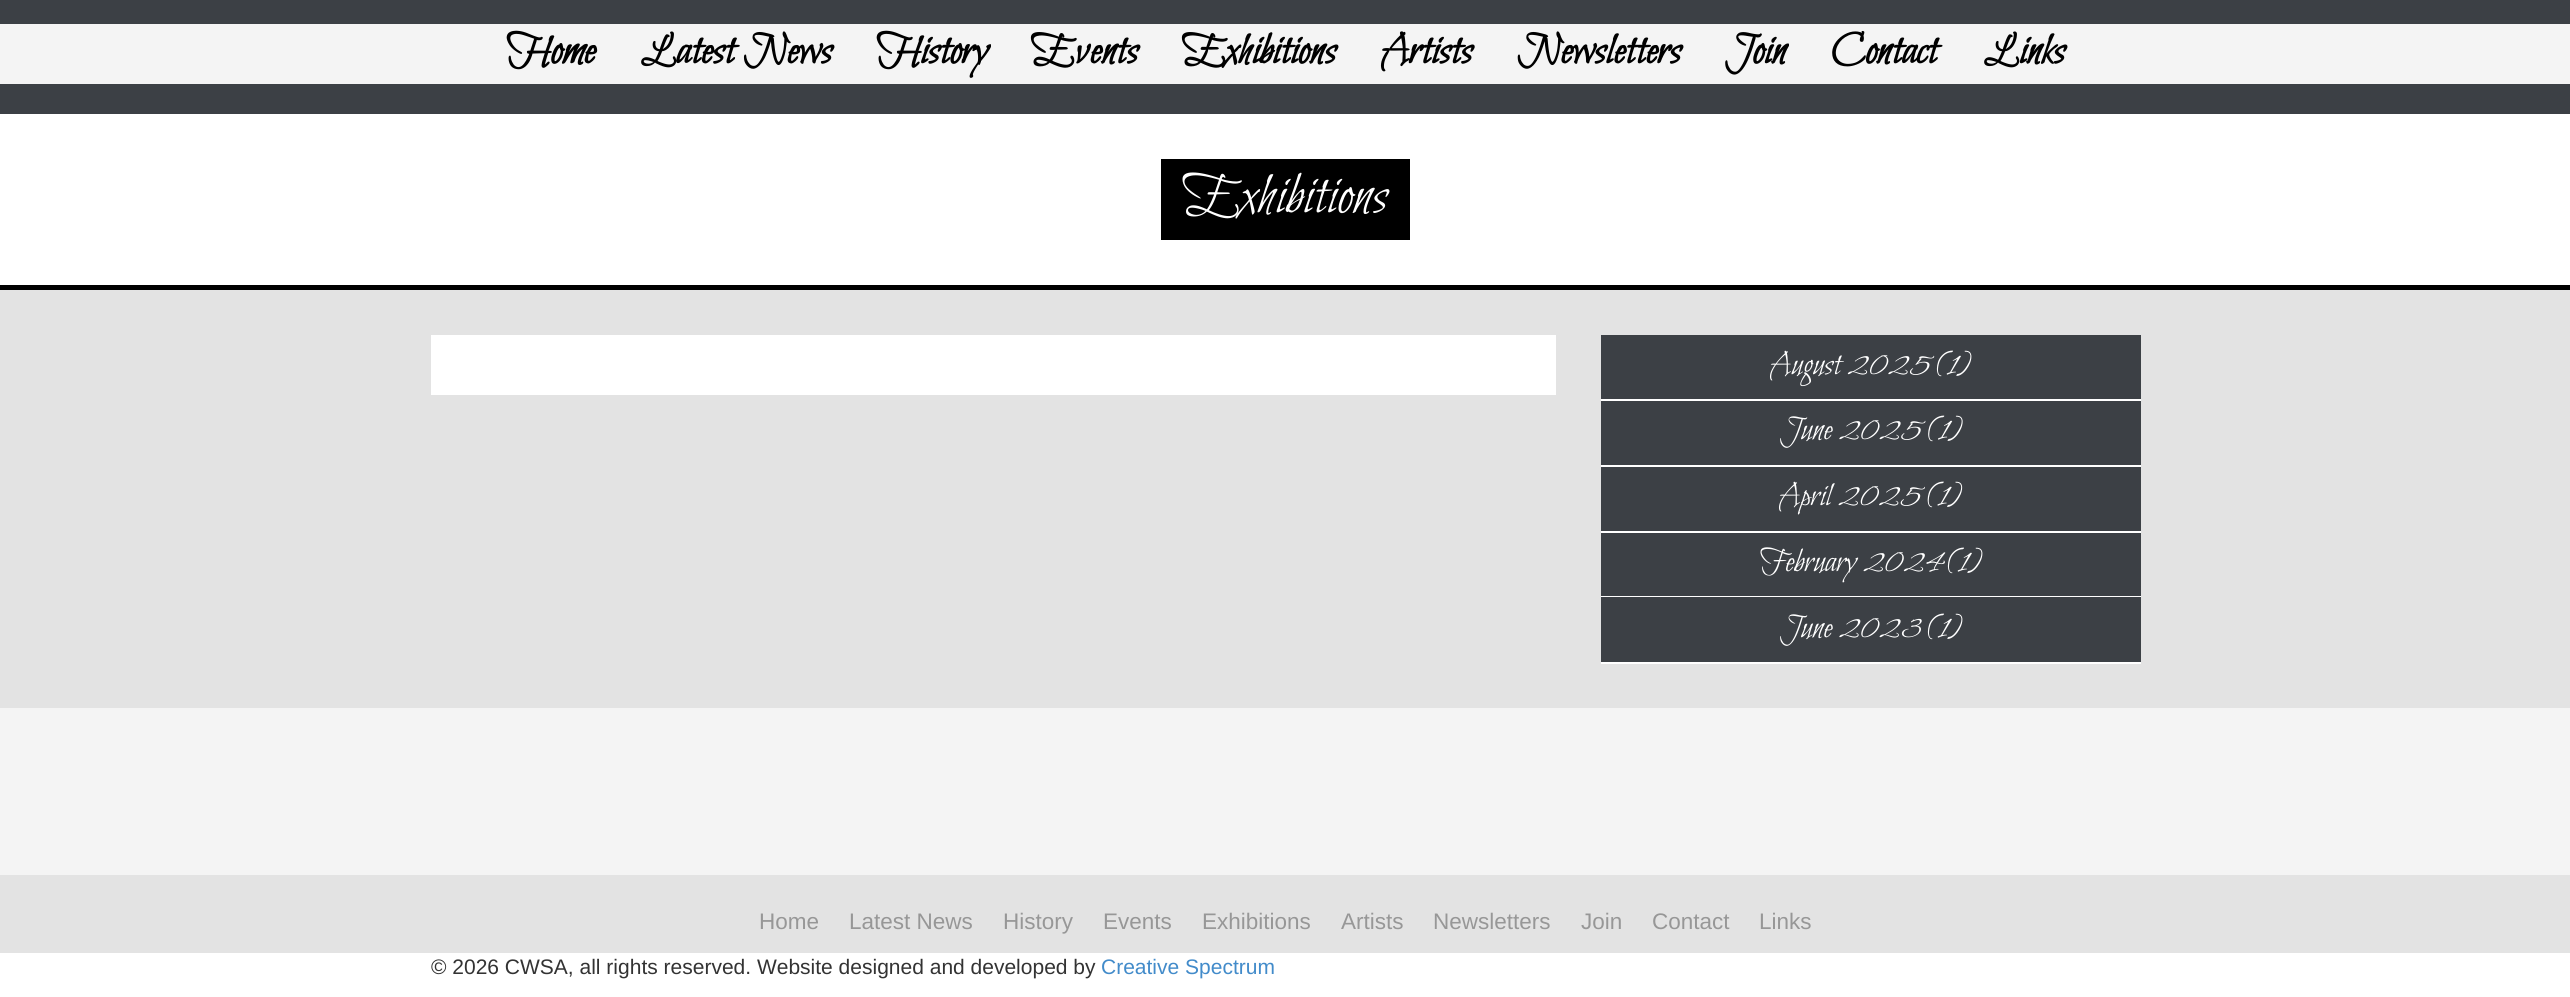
import math
import cairo

surface = cairo.ImageSurface(cairo.Format.RGB24, 2570, 997)
ctx = cairo.Context(surface)
options = cairo.FontOptions()
options.set_hint_metrics(cairo.HintMetrics.OFF)
options.set_hint_style(cairo.HintStyle.NONE)
ctx.set_font_options(options)
ctx.set_miter_limit(4)


def ink(r, g, b):
    ctx.set_source_rgb(r / 255, g / 255, b / 255)


def write(x, y, s, family, size, color, bold=False, italic=False):
    ctx.select_font_face(family, cairo.FontSlant.ITALIC if italic else cairo.FontSlant.NORMAL, cairo.FontWeight.BOLD if bold else cairo.FontWeight.NORMAL)
    ctx.set_font_size(size)
    ink(*color)
    ctx.move_to(x, y)
    ctx.show_text(s)


def block(x, y, w, h, *color):
    ink(*color)
    ctx.rectangle(x, y, w, h)
    ctx.fill()


s1 = dict(family="Bilbo Swash Caps", size=45, color=(0, 0, 0), bold=True)
s2 = dict(family="Bilbo Swash Caps", size=60, color=(255, 255, 255))
s3 = dict(family="Bilbo Swash Caps", size=34.5, color=(255, 255, 255))
s4 = dict(family="Liberation Sans", size=22.5, color=(151, 151, 151))
s5 = dict(family="Liberation Sans", size=21, color=(51, 51, 51))
s6 = dict(family="Liberation Sans", size=21, color=(66, 139, 202))

ink(255, 255, 255)
ctx.paint()
block(0, 0, 2570, 114, 60, 64, 69)
block(0, 24, 2570, 60, 244, 244, 244)
write(507, 63, "Home", **s1)
write(640, 63, "Latest News", **s1)
write(877, 63, "History", **s1)
write(1032, 63, "Events", **s1)
write(1183, 63, "Exhibitions", **s1)
write(1381, 63, "Artists", **s1)
write(1517, 63, "Newsletters", **s1)
write(1725, 63, "Join", **s1)
write(1831, 63, "Contact", **s1)
write(1983, 63, "Links", **s1)
block(0, 290, 2570, 418, 227, 227, 227)
block(0, 285, 2570, 5, 0, 0, 0)
block(1161, 159, 249, 81, 0, 0, 0)
write(1184, 212, "Exhibitions", **s2)
block(431, 335, 1125, 60, 255, 255, 255)
block(1601, 335, 540, 64, 60, 64, 69)
block(1601, 399, 540, 2, 255, 255, 255)
write(1770, 374, "August 2025 (1)", **s3)
block(1601, 401, 540, 64, 60, 64, 69)
block(1601, 465, 540, 2, 255, 255, 255)
write(1780, 439, "June 2025 (1)", **s3)
block(1601, 467, 540, 64, 60, 64, 69)
block(1601, 531, 540, 2, 255, 255, 255)
write(1779, 505, "April 2025 (1)", **s3)
block(1601, 533, 540, 63, 60, 64, 69)
block(1601, 596, 540, 1, 255, 255, 255)
write(1760, 571, "February 2024 (1)", **s3)
block(1601, 597, 540, 65, 60, 64, 69)
block(1601, 662, 540, 2, 255, 255, 255)
write(1780, 637, "June 2023 (1)", **s3)
block(0, 708, 2570, 167, 244, 244, 244)
block(0, 875, 2570, 78, 227, 227, 227)
write(759, 929, "Home", **s4)
write(849, 929, "Latest News", **s4)
write(1003, 929, "History", **s4)
write(1103, 929, "Events", **s4)
write(1202, 929, "Exhibitions", **s4)
write(1341, 929, "Artists", **s4)
write(1433, 929, "Newsletters", **s4)
write(1581, 929, "Join", **s4)
write(1652, 929, "Contact", **s4)
write(1759, 929, "Links", **s4)
write(431, 974, "© 2026 CWSA, all rights reserved. Website designed and developed by", **s5)
write(1101, 974, "Creative Spectrum", **s6)
surface.write_to_png("screenshot.png")
